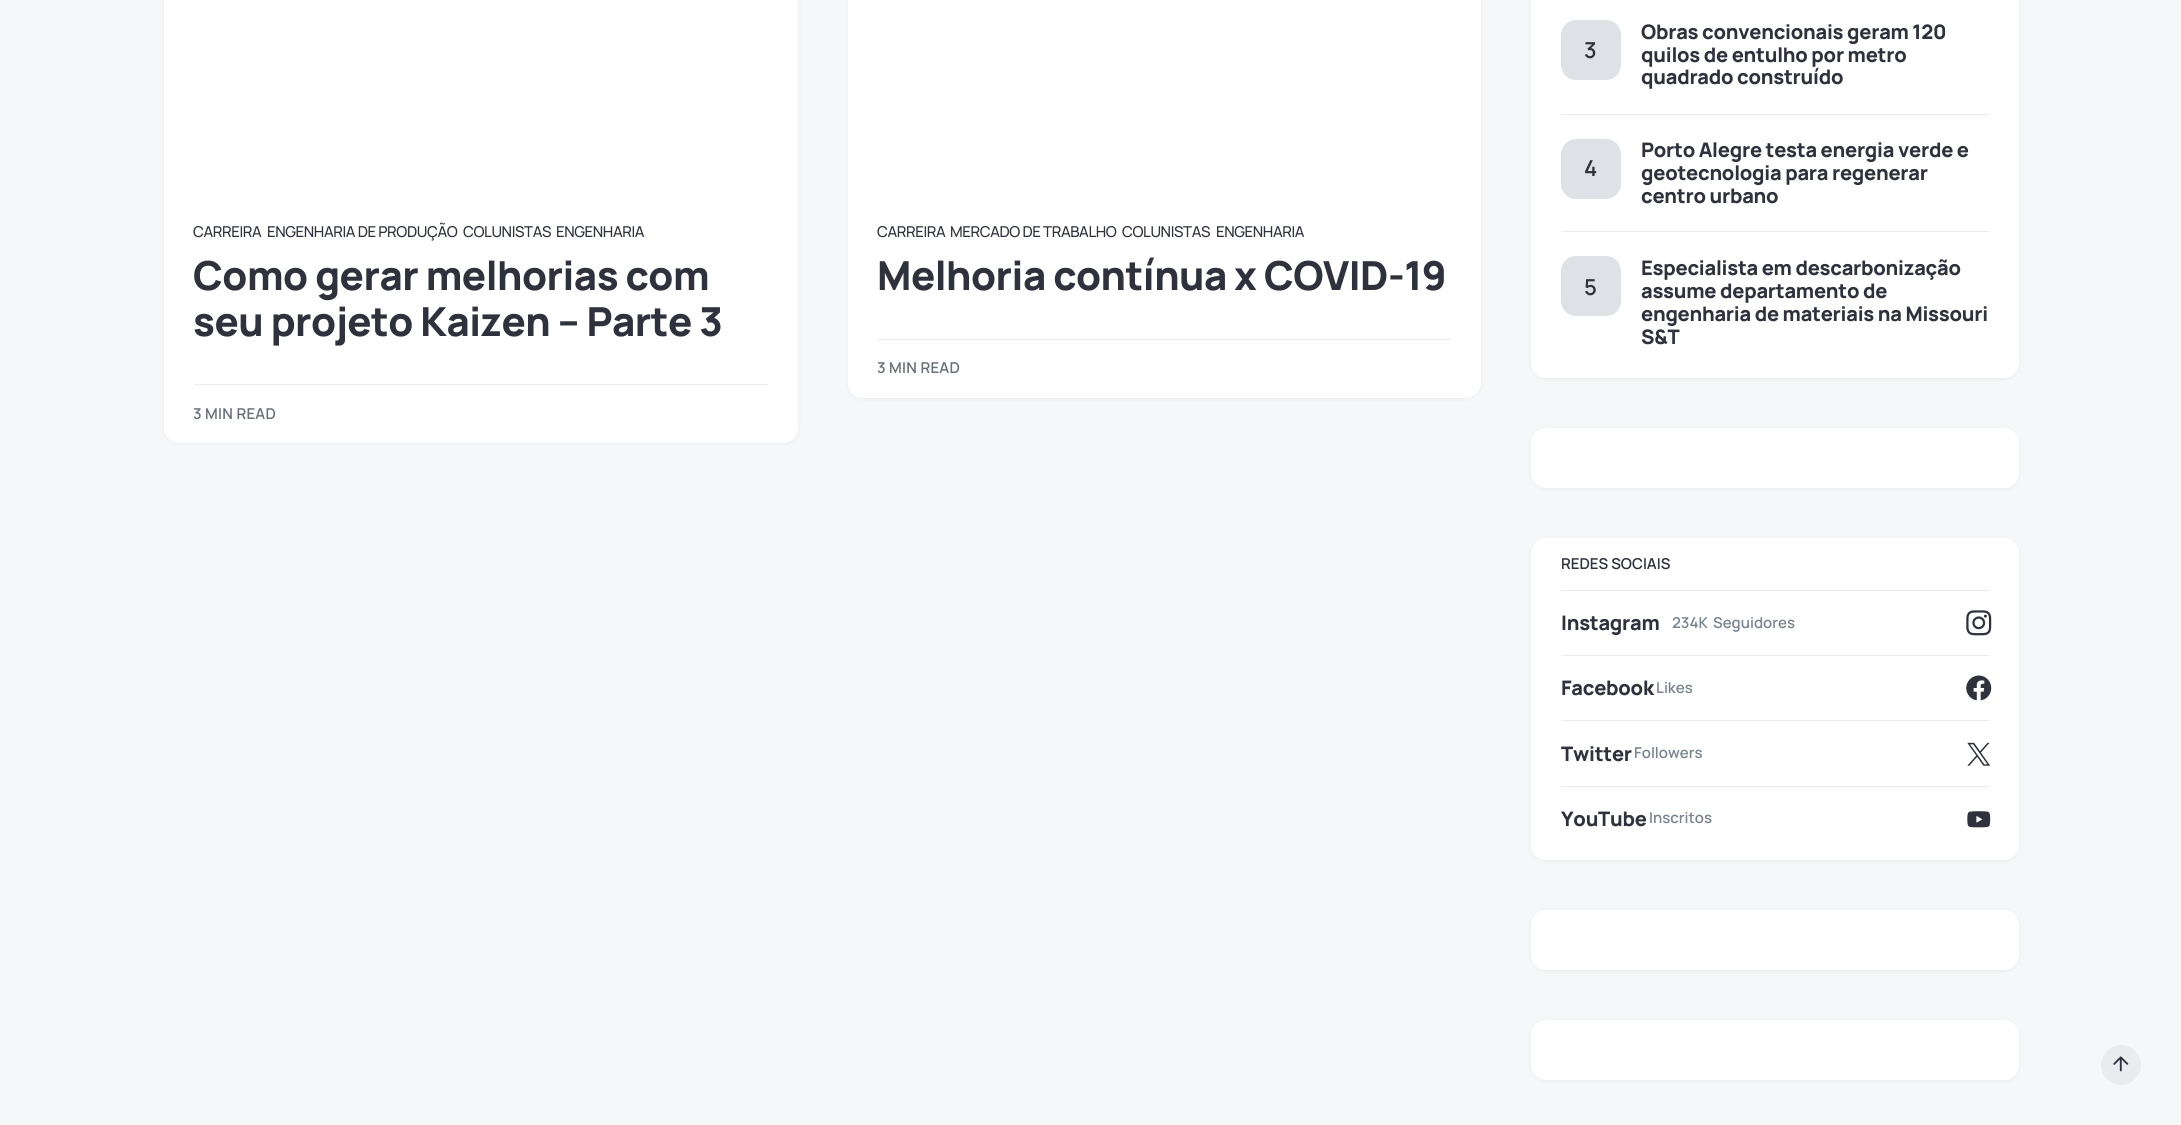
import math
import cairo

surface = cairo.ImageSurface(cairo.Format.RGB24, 2181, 1125)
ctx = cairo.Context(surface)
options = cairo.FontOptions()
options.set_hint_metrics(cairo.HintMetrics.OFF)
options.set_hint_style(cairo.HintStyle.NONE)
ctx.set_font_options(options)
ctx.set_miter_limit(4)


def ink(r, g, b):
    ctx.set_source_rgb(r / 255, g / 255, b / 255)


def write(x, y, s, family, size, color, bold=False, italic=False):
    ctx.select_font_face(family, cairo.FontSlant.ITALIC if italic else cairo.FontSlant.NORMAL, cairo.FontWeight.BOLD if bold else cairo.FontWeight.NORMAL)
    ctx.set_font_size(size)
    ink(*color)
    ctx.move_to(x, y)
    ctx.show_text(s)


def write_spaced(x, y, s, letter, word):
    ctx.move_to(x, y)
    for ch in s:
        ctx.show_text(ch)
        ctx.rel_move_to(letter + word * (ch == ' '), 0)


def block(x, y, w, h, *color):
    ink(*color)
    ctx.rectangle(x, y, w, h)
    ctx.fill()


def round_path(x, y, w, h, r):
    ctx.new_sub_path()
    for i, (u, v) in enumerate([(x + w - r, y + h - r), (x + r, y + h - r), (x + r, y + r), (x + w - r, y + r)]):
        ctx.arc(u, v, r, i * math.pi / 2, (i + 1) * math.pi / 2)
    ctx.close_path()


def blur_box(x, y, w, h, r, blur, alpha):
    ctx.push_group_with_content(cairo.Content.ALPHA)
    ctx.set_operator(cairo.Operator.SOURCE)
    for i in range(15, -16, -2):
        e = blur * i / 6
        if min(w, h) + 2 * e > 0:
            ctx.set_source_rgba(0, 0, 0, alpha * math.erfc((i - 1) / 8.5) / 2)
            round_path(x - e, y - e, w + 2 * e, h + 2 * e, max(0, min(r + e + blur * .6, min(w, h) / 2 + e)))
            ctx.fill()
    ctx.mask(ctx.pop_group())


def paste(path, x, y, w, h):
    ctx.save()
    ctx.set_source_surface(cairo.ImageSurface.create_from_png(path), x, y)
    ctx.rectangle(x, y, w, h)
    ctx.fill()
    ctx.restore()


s1 = dict(family="Manrope SemiBold", size=22, color=(47, 50, 61))
s2 = dict(family="Manrope SemiBold", size=15, color=(47, 50, 61))
s3 = dict(family="Manrope SemiBold", size=15, color=(120, 132, 143))

ink(245, 247, 248)
ctx.paint()
ink(0, 0, 0)
blur_box(164, -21, 634, 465, 15, 2, 0.05)
ink(255, 255, 255)
round_path(164, -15, 634, 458, 15)
ctx.fill()
ctx.select_font_face("Manrope Medium")
ctx.set_font_size(15)
ink(47, 50, 61)
write_spaced(193, 237, "CARREIRA", -0.4, 0)
write_spaced(267, 237, "ENGENHARIA DE PRODUÇÃO", -0.4, 0)
write_spaced(463, 237, "COLUNISTAS", -0.4, 0)
write_spaced(556, 237, "ENGENHARIA", -0.4, 0)
ctx.select_font_face("Manrope ExtraBold")
ctx.set_font_size(40)
write_spaced(193, 290, "Como gerar melhorias com", -0.5, 0)
write_spaced(193, 336, "seu projeto Kaizen – Parte 3", -0.5, 0)
block(194, 384, 574, 1, 233, 236, 239)
ctx.select_font_face("Manrope SemiBold")
ctx.set_font_size(15)
ink(103, 113, 122)
write_spaced(193, 419, "3 MIN READ", 0.25, 0)
ink(0, 0, 0)
blur_box(848, -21, 633, 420, 15, 2, 0.05)
ink(255, 255, 255)
round_path(848, -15, 633, 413, 15)
ctx.fill()
ctx.select_font_face("Manrope Medium")
ink(47, 50, 61)
write_spaced(877, 237, "CARREIRA", -0.4, 0)
write_spaced(950, 237, "MERCADO DE TRABALHO", -0.4, 0)
write_spaced(1122, 237, "COLUNISTAS", -0.4, 0)
write_spaced(1216, 237, "ENGENHARIA", -0.4, 0)
ctx.select_font_face("Manrope ExtraBold")
ctx.set_font_size(40)
write_spaced(877, 290, "Melhoria contínua x COVID-19", -0.5, 0)
block(878, 339, 573, 1, 233, 236, 239)
ctx.save()
ctx.rectangle(878, 358, 573, 22)
ctx.clip()
ctx.select_font_face("Manrope SemiBold")
ctx.set_font_size(15)
ink(103, 113, 122)
write_spaced(877, 373, "3 MIN READ", 0.25, 0)
ctx.restore()
ink(0, 0, 0)
blur_box(1531, -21, 488, 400, 15, 2, 0.05)
ink(255, 255, 255)
round_path(1531, -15, 488, 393, 15)
ctx.fill()
ink(222, 226, 230)
round_path(1561, 20, 60, 60, 15)
ctx.fill()
write(1584, 58, "3", **s1)
ctx.select_font_face("Manrope ExtraBold")
ctx.set_font_size(20)
write_spaced(1641, 39, "Obras convencionais geram 120", -0.25, 0)
write_spaced(1641, 62, "quilos de entulho por metro", -0.25, 0)
write_spaced(1641, 84, "quadrado construído", -0.25, 0)
block(1561, 114, 428, 1, 233, 236, 239)
ink(222, 226, 230)
round_path(1561, 139, 60, 60, 15)
ctx.fill()
write(1584, 176, "4", **s1)
ctx.select_font_face("Manrope ExtraBold")
ctx.set_font_size(20)
write_spaced(1641, 157, "Porto Alegre testa energia verde e", -0.25, 0)
write_spaced(1641, 180, "geotecnologia para regenerar", -0.25, 0)
write_spaced(1641, 203, "centro urbano", -0.25, 0)
block(1561, 231, 428, 1, 233, 236, 239)
ink(222, 226, 230)
round_path(1561, 256, 60, 60, 15)
ctx.fill()
write(1584, 295, "5", **s1)
ctx.select_font_face("Manrope ExtraBold")
ctx.set_font_size(20)
write_spaced(1641, 275, "Especialista em descarbonização", -0.25, 0)
write_spaced(1641, 298, "assume departamento de", -0.25, 0)
write_spaced(1641, 321, "engenharia de materiais na Missouri", -0.25, 0)
write_spaced(1641, 344, "S&T", -0.25, 0)
ink(0, 0, 0)
blur_box(1531, 429, 488, 60, 15, 2, 0.05)
ink(255, 255, 255)
round_path(1531, 428, 488, 60, 15)
ctx.fill()
ink(0, 0, 0)
blur_box(1531, 539, 488, 322, 15, 2, 0.05)
ink(255, 255, 255)
round_path(1531, 538, 488, 322, 15)
ctx.fill()
block(1561, 590, 428, 1, 233, 236, 239)
write(1561, 569, "REDES SOCIAIS", **s2)
ctx.select_font_face("Manrope ExtraBold")
ctx.set_font_size(20)
write_spaced(1561, 630, "Instagram", -0.25, 0)
write(1672, 628, "234K", **s3)
write(1713, 628, "Seguidores", **s3)
paste("pic1.png", 1966, 610, 26, 26)
block(1561, 655, 428, 1, 233, 236, 239)
ctx.select_font_face("Manrope ExtraBold")
ctx.set_font_size(20)
ink(47, 50, 61)
write_spaced(1561, 695, "Facebook", -0.25, 0)
write(1656, 693, "Likes", **s3)
paste("pic2.png", 1966, 675, 26, 26)
block(1561, 720, 428, 1, 233, 236, 239)
ctx.select_font_face("Manrope ExtraBold")
ctx.set_font_size(20)
ink(47, 50, 61)
write_spaced(1561, 761, "Twitter", -0.25, 0)
write(1634, 758, "Followers", **s3)
paste("pic3.png", 1967, 742, 24, 24)
block(1561, 786, 428, 1, 233, 236, 239)
ctx.select_font_face("Manrope ExtraBold")
ctx.set_font_size(20)
ink(47, 50, 61)
write_spaced(1561, 826, "YouTube", -0.25, 0)
write(1649, 823, "Inscritos", **s3)
paste("pic4.png", 1967, 811, 24, 17)
ink(0, 0, 0)
blur_box(1531, 911, 488, 60, 15, 2, 0.05)
ink(255, 255, 255)
round_path(1531, 910, 488, 60, 15)
ctx.fill()
ink(0, 0, 0)
blur_box(1531, 1021, 488, 60, 15, 2, 0.05)
ink(255, 255, 255)
round_path(1531, 1020, 488, 60, 15)
ctx.fill()
ink(233, 236, 239)
ctx.arc(2121, 1065, 20, 0, 2 * math.pi)
ctx.fill()
paste("pic5.png", 2113, 1056, 16, 16)
surface.write_to_png("screenshot.png")
